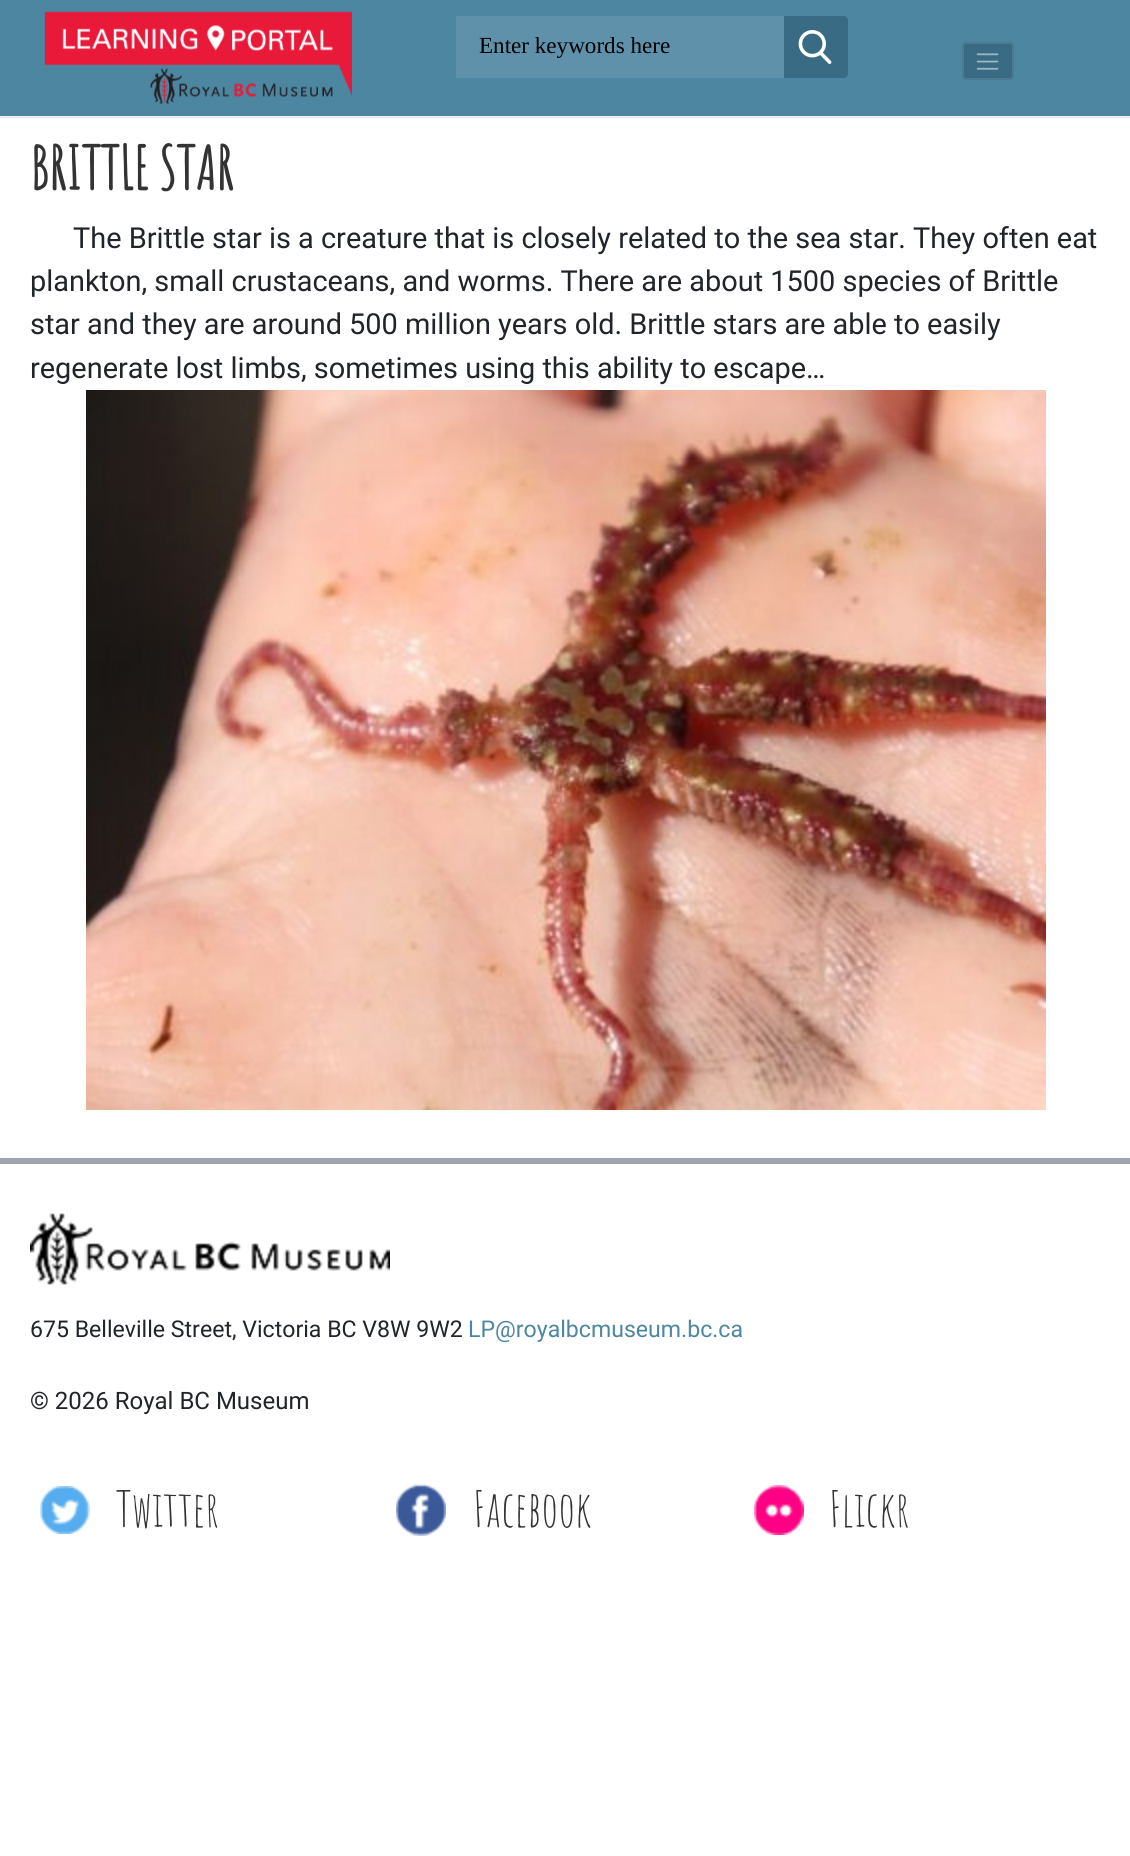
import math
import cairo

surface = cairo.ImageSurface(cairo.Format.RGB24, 1130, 1856)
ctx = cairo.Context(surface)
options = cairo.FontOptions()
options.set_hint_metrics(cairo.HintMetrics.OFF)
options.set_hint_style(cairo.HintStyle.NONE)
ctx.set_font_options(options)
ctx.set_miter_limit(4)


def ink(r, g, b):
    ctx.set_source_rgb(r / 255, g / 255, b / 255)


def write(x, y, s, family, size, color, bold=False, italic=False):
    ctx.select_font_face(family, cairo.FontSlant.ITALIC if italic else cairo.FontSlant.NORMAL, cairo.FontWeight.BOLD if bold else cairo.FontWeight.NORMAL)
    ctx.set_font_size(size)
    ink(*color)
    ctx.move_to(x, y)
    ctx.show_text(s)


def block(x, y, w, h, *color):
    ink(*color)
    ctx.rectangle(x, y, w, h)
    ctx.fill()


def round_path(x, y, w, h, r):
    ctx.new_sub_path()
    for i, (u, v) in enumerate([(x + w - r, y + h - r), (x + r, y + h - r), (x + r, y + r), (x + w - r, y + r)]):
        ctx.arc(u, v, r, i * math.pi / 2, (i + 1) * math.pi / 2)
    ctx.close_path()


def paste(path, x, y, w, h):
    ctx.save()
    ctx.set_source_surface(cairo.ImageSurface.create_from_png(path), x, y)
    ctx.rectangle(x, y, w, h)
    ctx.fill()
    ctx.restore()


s1 = dict(family="Liberation Serif", size=23.1, color=(0, 0, 0))
s2 = dict(family="Amatic SC", size=59, color=(51, 51, 51), bold=True)
s3 = dict(family="Roboto", size=28.9, color=(33, 37, 41))
s4 = dict(family="Roboto", size=23.1, color=(33, 37, 41))
s5 = dict(family="Roboto", size=23.1, color=(77, 134, 160))
s6 = dict(family="Roboto", size=24, color=(33, 37, 41))
s7 = dict(family="Amatic SC", size=49, color=(51, 51, 51))

ink(255, 255, 255)
ctx.paint()
block(0, 0, 1130, 116, 77, 134, 160)
block(0, 116, 1130, 2, 238, 238, 238)
paste("pic1.png", 44, 11, 308, 93)
block(456, 16, 328, 62, 95, 146, 170)
write(479, 53, "Enter keywords here", **s1)
ink(57, 108, 132)
ctx.new_path()
ctx.move_to(784, 16)
ctx.line_to(844, 16)
ctx.curve_to(846, 16, 848, 18, 848, 20)
ctx.line_to(848, 74)
ctx.curve_to(848, 76, 846, 78, 844, 78)
ctx.line_to(784, 78)
ctx.close_path()
ctx.fill()
paste("pic2.png", 798, 30, 34, 34)
round_path(962, 42, 52, 38, 4)
ctx.fill()
round_path(963, 43, 50, 36, 3)
ctx.set_source_rgba(1, 1, 1, 0.1)
ctx.stroke()
paste("pic3.png", 976, 53, 23, 17)
write(30, 190, "BRITTLE STAR", **s2)
write(73, 248, "The Brittle star is a creature that is closely related to the sea star. They often eat", **s3)
write(30, 291, "plankton, small crustaceans, and worms. There are about 1500 species of Brittle", **s3)
write(30, 334, "star and they are around 500 million years old. Brittle stars are able to easily", **s3)
write(30, 378, "regenerate lost limbs, sometimes using this ability to escape…", **s3)
paste("pic4.png", 86, 390, 960, 720)
block(0, 1158, 1130, 6, 160, 163, 175)
paste("pic5.png", 30, 1213, 360, 72)
write(30, 1337, "675 Belleville Street, Victoria BC V8W 9W2", **s4)
write(468, 1337, "LP@royalbcmuseum.bc.ca", **s5)
write(30, 1409, "© 2026 Royal BC Museum", **s6)
paste("pic6.png", 40, 1486, 50, 48)
write(116, 1527, "Twitter", **s7)
paste("pic7.png", 396, 1484, 50, 52)
write(473, 1527, "Facebook", **s7)
paste("pic8.png", 754, 1485, 50, 50)
write(829, 1527, "Flickr", **s7)
surface.write_to_png("screenshot.png")
